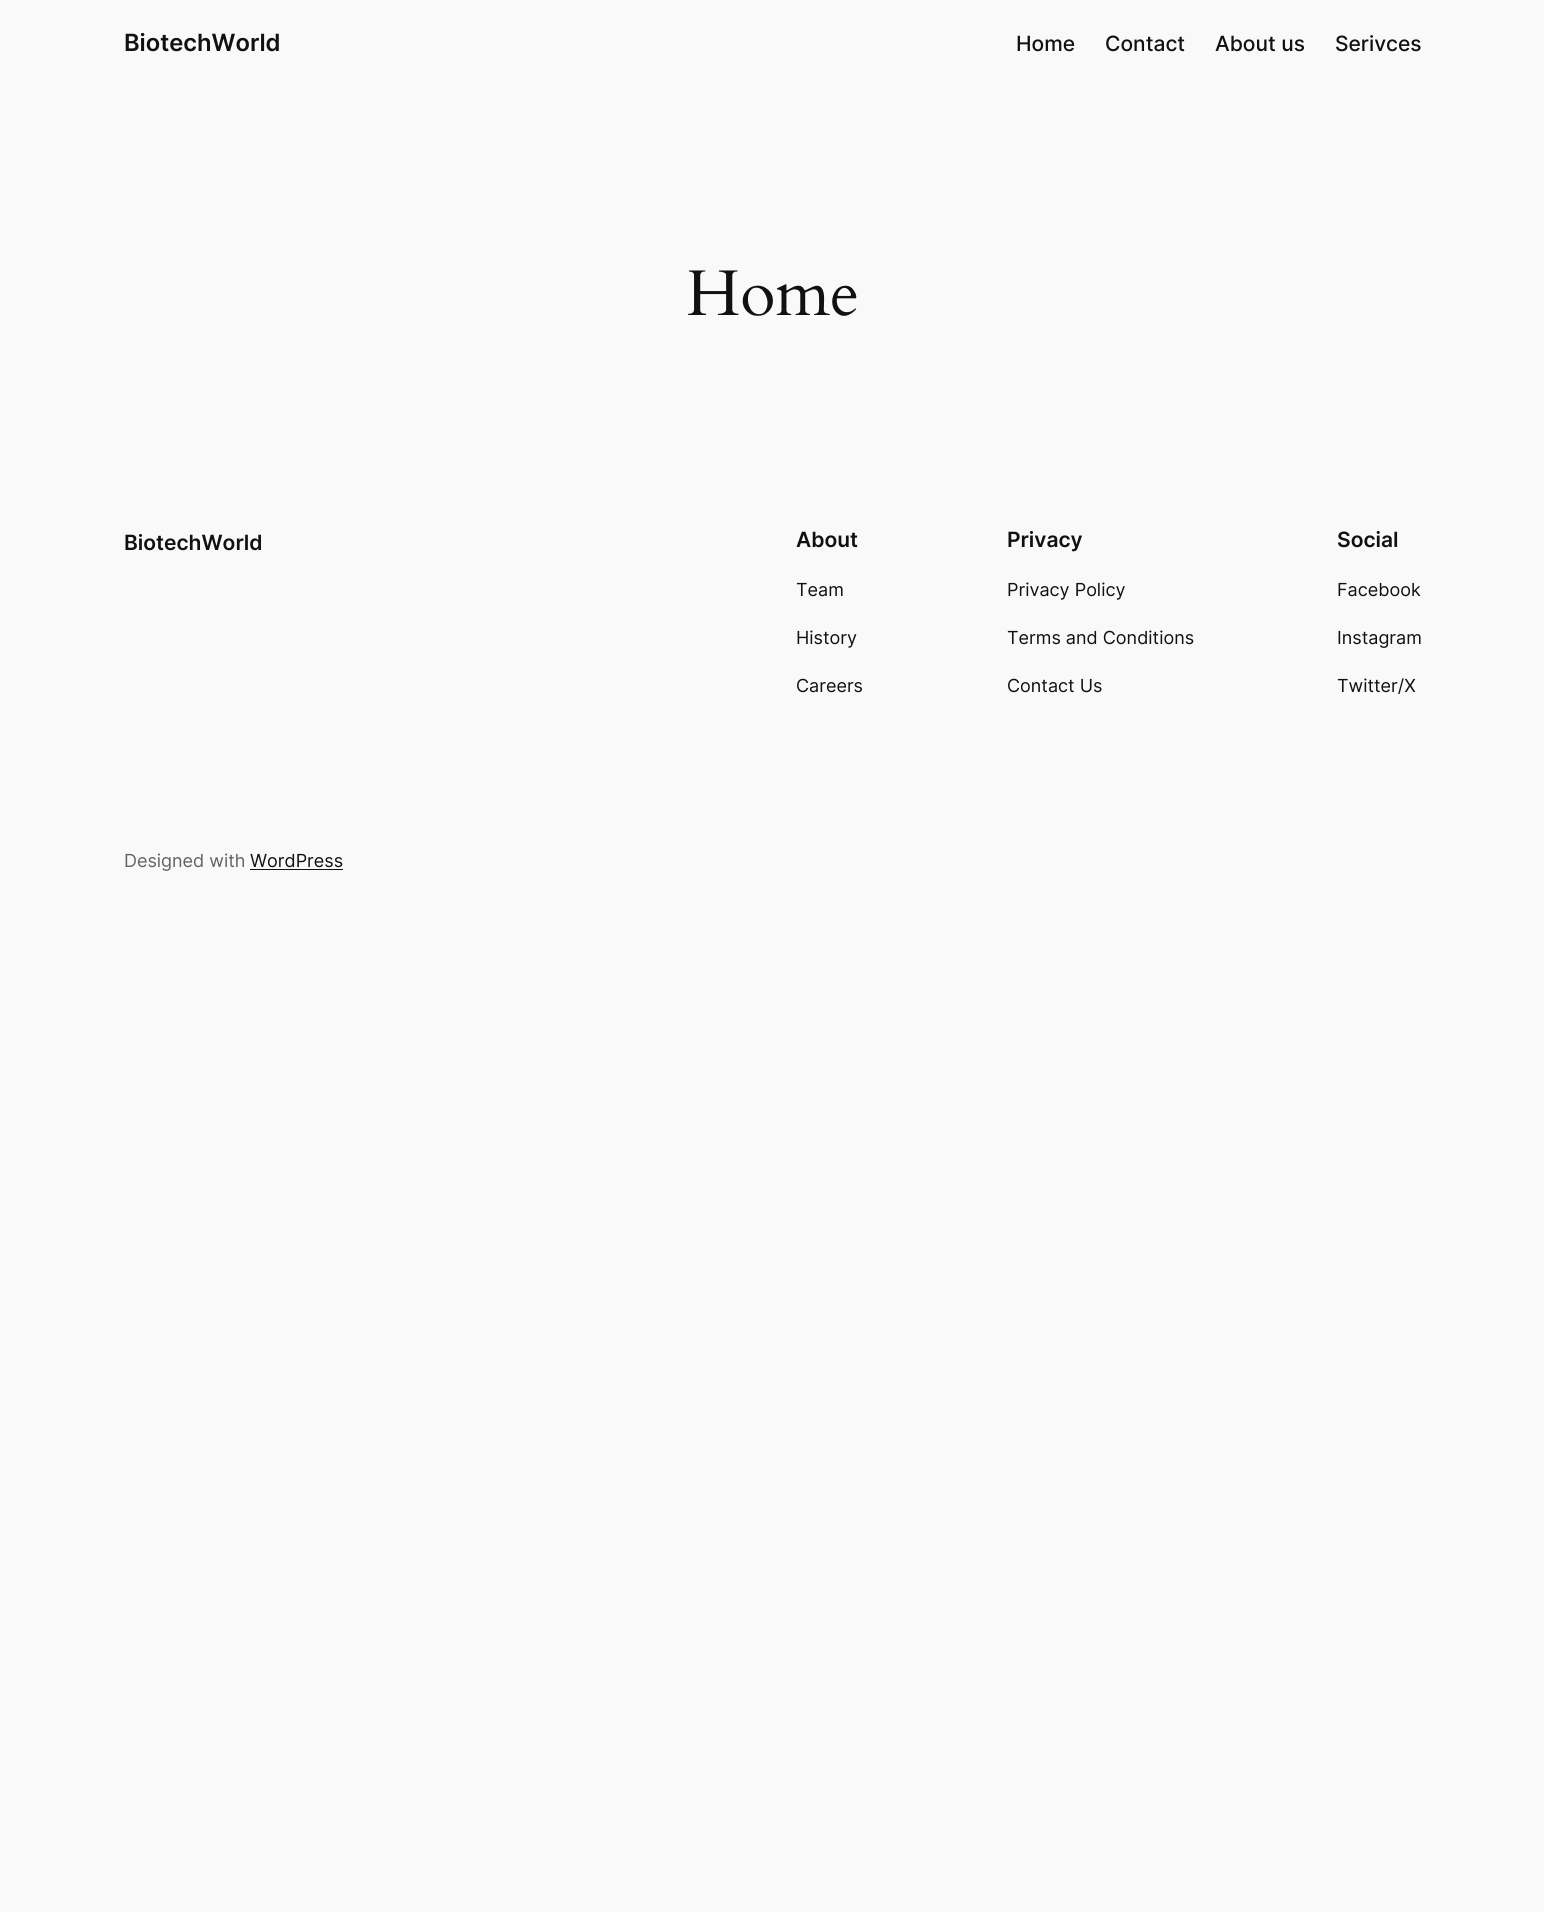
import math
import cairo

surface = cairo.ImageSurface(cairo.Format.RGB24, 1544, 1912)
ctx = cairo.Context(surface)
options = cairo.FontOptions()
options.set_hint_metrics(cairo.HintMetrics.OFF)
options.set_hint_style(cairo.HintStyle.NONE)
ctx.set_font_options(options)
ctx.set_miter_limit(4)


def ink(r, g, b):
    ctx.set_source_rgb(r / 255, g / 255, b / 255)


def write(x, y, s, family, size, color, bold=False, italic=False):
    ctx.select_font_face(family, cairo.FontSlant.ITALIC if italic else cairo.FontSlant.NORMAL, cairo.FontWeight.BOLD if bold else cairo.FontWeight.NORMAL)
    ctx.set_font_size(size)
    ink(*color)
    ctx.move_to(x, y)
    ctx.show_text(s)


def block(x, y, w, h, *color):
    ink(*color)
    ctx.rectangle(x, y, w, h)
    ctx.fill()


def paste(path, x, y, w, h):
    ctx.save()
    ctx.set_source_surface(cairo.ImageSurface.create_from_png(path), x, y)
    ctx.rectangle(x, y, w, h)
    ctx.fill()
    ctx.restore()


s1 = dict(family="Inter SemiBold", size=23.75, color=(17, 17, 17))
s2 = dict(family="Inter Medium", size=21, color=(17, 17, 17))
s3 = dict(family="Inter SemiBold", size=21, color=(17, 17, 17))
s4 = dict(family="Inter", size=18, color=(17, 17, 17))
s5 = dict(family="Inter", size=18, color=(99, 99, 99))

ink(249, 249, 249)
ctx.paint()
write(124, 51, "BiotechWorld", **s1)
write(1016, 51, "Home", **s2)
write(1105, 51, "Contact", **s2)
write(1215, 51, "About us", **s2)
write(1335, 51, "Serivces", **s2)
paste("pic1.png", 688, 270, 169, 46)
write(124, 550, "BiotechWorld", **s3)
write(796, 547, "About", **s3)
write(796, 596, "Team", **s4)
write(796, 644, "History", **s4)
write(796, 692, "Careers", **s4)
write(1007, 547, "Privacy", **s3)
write(1007, 596, "Privacy Policy", **s4)
write(1007, 644, "Terms and Conditions", **s4)
write(1007, 692, "Contact Us", **s4)
write(1337, 547, "Social", **s3)
write(1337, 596, "Facebook", **s4)
write(1337, 644, "Instagram", **s4)
write(1337, 692, "Twitter/X", **s4)
write(124, 867, "Designed with", **s5)
write(250, 867, "WordPress", **s4)
block(250, 869, 93, 1, 17, 17, 17)
surface.write_to_png("screenshot.png")
